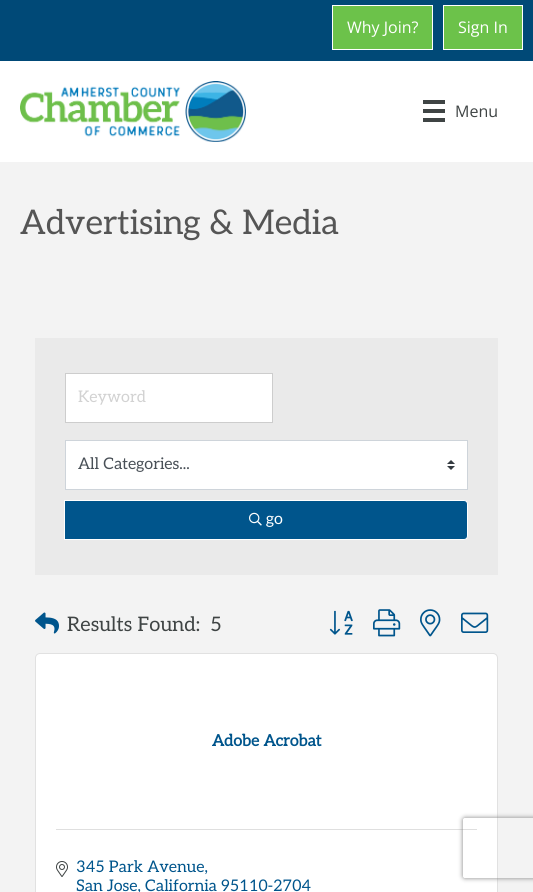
import math
import cairo

surface = cairo.ImageSurface(cairo.Format.RGB24, 533, 892)
ctx = cairo.Context(surface)
options = cairo.FontOptions()
options.set_hint_metrics(cairo.HintMetrics.OFF)
options.set_hint_style(cairo.HintStyle.NONE)
ctx.set_font_options(options)
ctx.set_miter_limit(4)


def ink(r, g, b):
    ctx.set_source_rgb(r / 255, g / 255, b / 255)


def write(x, y, s, family, size, color, bold=False, italic=False):
    ctx.select_font_face(family, cairo.FontSlant.ITALIC if italic else cairo.FontSlant.NORMAL, cairo.FontWeight.BOLD if bold else cairo.FontWeight.NORMAL)
    ctx.set_font_size(size)
    ink(*color)
    ctx.move_to(x, y)
    ctx.show_text(s)


def block(x, y, w, h, *color):
    ink(*color)
    ctx.rectangle(x, y, w, h)
    ctx.fill()


def round_path(x, y, w, h, r):
    ctx.new_sub_path()
    for i, (u, v) in enumerate([(x + w - r, y + h - r), (x + r, y + h - r), (x + r, y + r), (x + w - r, y + r)]):
        ctx.arc(u, v, r, i * math.pi / 2, (i + 1) * math.pi / 2)
    ctx.close_path()


def blur_box(x, y, w, h, r, blur, alpha):
    ctx.push_group_with_content(cairo.Content.ALPHA)
    ctx.set_operator(cairo.Operator.SOURCE)
    for i in range(15, -16, -2):
        e = blur * i / 6
        if min(w, h) + 2 * e > 0:
            ctx.set_source_rgba(0, 0, 0, alpha * math.erfc((i - 1) / 8.5) / 2)
            round_path(x - e, y - e, w + 2 * e, h + 2 * e, max(0, min(r + e + blur * .6, min(w, h) / 2 + e)))
            ctx.fill()
    ctx.mask(ctx.pop_group())


def paste(path, x, y, w, h):
    ctx.save()
    ctx.set_source_surface(cairo.ImageSurface.create_from_png(path), x, y)
    ctx.rectangle(x, y, w, h)
    ctx.fill()
    ctx.restore()


s1 = dict(family="Open Sans", size=16, color=(255, 255, 255))
s2 = dict(family="Open Sans", size=16, color=(63, 68, 68))
s3 = dict(family="Aleo", size=34, color=(85, 85, 85))
s4 = dict(family="Aleo", size=16, color=(210, 210, 210))
s5 = dict(family="Aleo", size=16, color=(73, 80, 87))
s6 = dict(family="Aleo", size=16, color=(255, 255, 255))
s7 = dict(family="Aleo", size=20, color=(63, 68, 68))
s8 = dict(family="Aleo", size=16, color=(0, 85, 140), bold=True)
s9 = dict(family="Aleo", size=16, color=(0, 85, 140))

ink(243, 243, 243)
ctx.paint()
block(0, 0, 533, 61, 0, 73, 119)
ink(108, 194, 74)
ctx.rectangle(332.5, 5.5, 100, 44)
ctx.fill_preserve()
ink(255, 255, 255)
ctx.set_line_width(1)
ctx.stroke()
write(347, 33, "Why Join?", **s1)
ink(108, 194, 74)
ctx.rectangle(443.5, 5.5, 79, 44)
ctx.fill_preserve()
ink(255, 255, 255)
ctx.stroke()
write(458, 33, "Sign In", **s1)
block(0, 61, 533, 101, 255, 255, 255)
paste("pic1.png", 20, 81, 226, 61)
block(423, 100, 22, 4, 63, 68, 68)
block(423, 109, 22, 4, 63, 68, 68)
block(423, 118, 22, 4, 63, 68, 68)
write(455, 117, "Menu", **s2)
write(20, 234, "Advertising & Media", **s3)
block(35, 338, 463, 237, 234, 234, 234)
ink(255, 255, 255)
ctx.rectangle(65.5, 373.5, 207, 49)
ctx.fill_preserve()
ink(205, 205, 205)
ctx.stroke()
write(78, 402, "Keyword", **s4)
block(66, 441, 401, 48, 255, 255, 255)
paste("pic2.png", 447, 460, 8, 10)
ctx.rectangle(65.5, 440.5, 402, 49)
ink(206, 212, 218)
ctx.stroke()
write(78, 469, "All Categories...", **s5)
ink(0, 85, 140)
ctx.new_path()
ctx.move_to(64.5, 500.5)
ctx.line_to(464, 500.5)
ctx.curve_to(466, 500.5, 467.5, 502, 467.5, 504)
ctx.line_to(467.5, 536)
ctx.curve_to(467.5, 538, 466, 539.5, 464, 539.5)
ctx.line_to(64.5, 539.5)
ctx.close_path()
ctx.fill_preserve()
ink(255, 255, 255)
ctx.stroke()
paste("pic3.png", 249, 512, 13, 14)
write(266, 524, "go", **s6)
paste("pic4.png", 35, 612, 24, 22)
write(67, 631, "Results Found:", **s7)
write(210, 631, "5", **s7)
paste("pic5.png", 329, 610, 24, 25)
paste("pic6.png", 373, 609, 28, 28)
paste("pic7.png", 420, 609, 21, 28)
paste("pic8.png", 461, 612, 28, 21)
ink(255, 255, 255)
round_path(35, 653, 463, 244, 5)
ctx.fill()
round_path(35.5, 653.5, 462, 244, 4.5)
ctx.set_source_rgba(0, 0, 0, 0.12)
ctx.stroke()
write(212, 746, "Adobe Acrobat", **s8)
block(56, 829, 421, 1, 223, 223, 223)
paste("pic9.png", 56, 861, 12, 16)
write(76, 872, "345 Park Avenue,", **s9)
write(76, 891, "San Jose, California 95110-2704", **s9)
ctx.save()
ctx.set_fill_rule(cairo.FillRule.EVEN_ODD)
ctx.new_path()
ctx.move_to(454, 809)
ctx.line_to(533, 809)
ctx.line_to(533, 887)
ctx.line_to(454, 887)
ctx.close_path()
ctx.move_to(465, 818)
ctx.line_to(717, 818)
ctx.curve_to(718, 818, 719, 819, 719, 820)
ctx.line_to(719, 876)
ctx.curve_to(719, 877, 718, 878, 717, 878)
ctx.line_to(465, 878)
ctx.curve_to(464, 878, 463, 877, 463, 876)
ctx.line_to(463, 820)
ctx.curve_to(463, 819, 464, 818, 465, 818)
ctx.close_path()
ctx.clip()
ink(128, 128, 128)
blur_box(463, 818, 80, 60, 2, 2.5, 1)
ctx.restore()
surface.write_to_png("screenshot.png")
